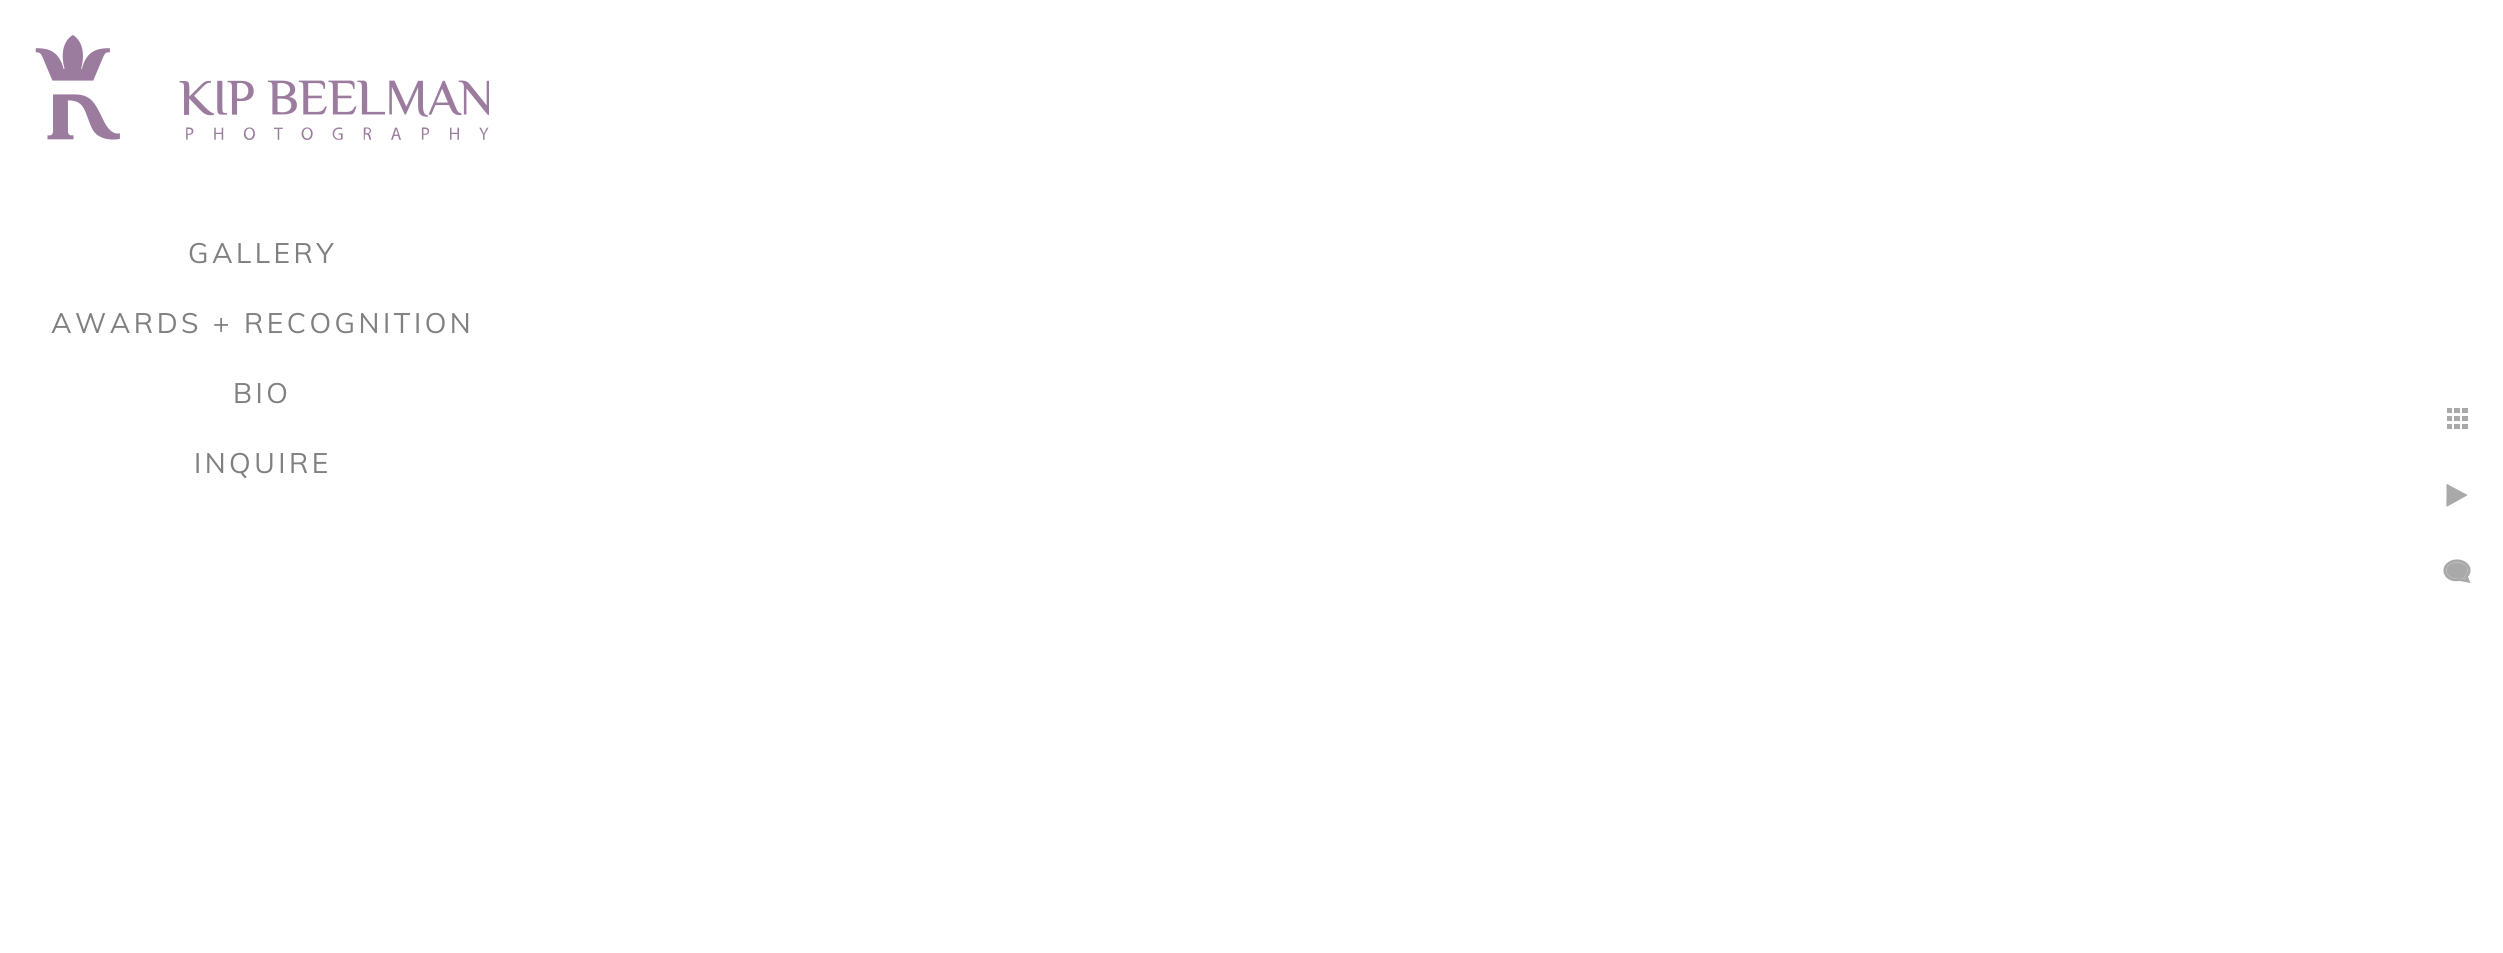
import math
import cairo

surface = cairo.ImageSurface(cairo.Format.RGB24, 2503, 953)
ctx = cairo.Context(surface)
options = cairo.FontOptions()
options.set_hint_metrics(cairo.HintMetrics.OFF)
options.set_hint_style(cairo.HintStyle.NONE)
ctx.set_font_options(options)
ctx.set_miter_limit(4)


def ink(r, g, b):
    ctx.set_source_rgb(r / 255, g / 255, b / 255)


def write_spaced(x, y, s, letter, word):
    ctx.move_to(x, y)
    for ch in s:
        ctx.show_text(ch)
        ctx.rel_move_to(letter + word * (ch == ' '), 0)


def paste(path, x, y, w, h):
    ctx.save()
    ctx.set_source_surface(cairo.ImageSurface.create_from_png(path), x, y)
    ctx.rectangle(x, y, w, h)
    ctx.fill()
    ctx.restore()


ink(255, 255, 255)
ctx.paint()
paste("pic1.png", 35, 35, 454, 105)
ctx.select_font_face("Muli")
ctx.set_font_size(28)
ink(128, 128, 128)
write_spaced(188, 263, "GALLERY", 3.5, 0)
write_spaced(51, 333, "AWARDS + RECOGNITION", 3.5, 0)
write_spaced(233, 403, "BIO", 3.5, 0)
write_spaced(194, 473, "INQUIRE", 3.5, 0)
paste("pic2.png", 2447, 408, 21, 21)
ink(169, 169, 169)
ctx.new_path()
ctx.move_to(2467, 495.5)
ctx.line_to(2451, 504.5)
ctx.curve_to(2445, 508, 2446.5, 507.5, 2446.5, 499)
ctx.line_to(2446.5, 484.5)
ctx.line_to(2447, 484)
ctx.line_to(2467.5, 495)
ctx.close_path()
ctx.fill()
paste("pic3.png", 2443, 559, 28, 24)
surface.write_to_png("screenshot.png")
